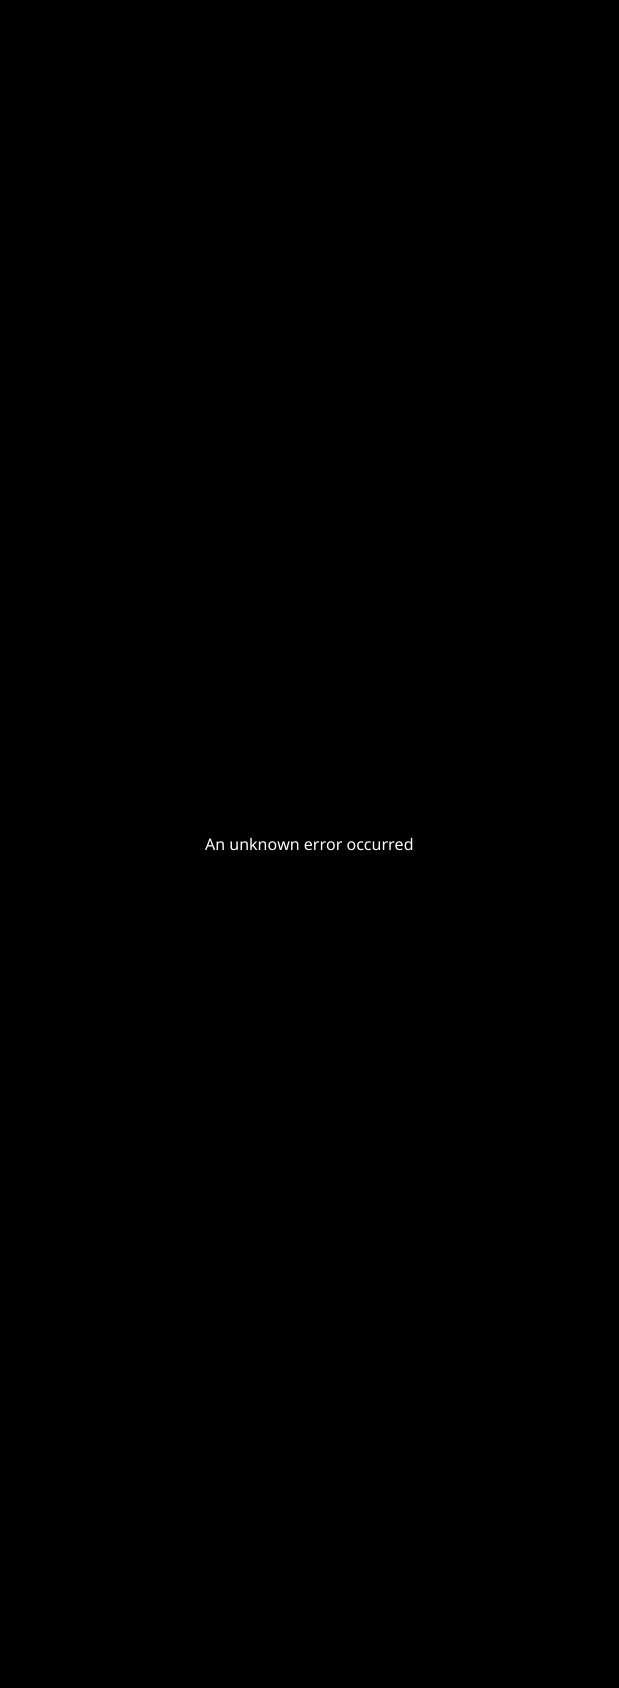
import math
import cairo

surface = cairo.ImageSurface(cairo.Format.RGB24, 619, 1688)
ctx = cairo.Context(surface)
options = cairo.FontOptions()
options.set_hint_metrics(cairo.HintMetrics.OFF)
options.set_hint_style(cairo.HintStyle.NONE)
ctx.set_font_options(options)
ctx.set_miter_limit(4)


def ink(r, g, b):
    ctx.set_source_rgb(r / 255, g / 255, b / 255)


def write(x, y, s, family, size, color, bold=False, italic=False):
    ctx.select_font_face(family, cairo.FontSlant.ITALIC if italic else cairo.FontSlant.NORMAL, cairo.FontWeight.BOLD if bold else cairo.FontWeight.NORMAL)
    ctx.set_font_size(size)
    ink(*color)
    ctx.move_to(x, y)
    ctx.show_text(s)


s1 = dict(family="Noto Sans", size=16, color=(255, 255, 255))

ink(0, 0, 0)
ctx.paint()
write(205, 850, "An unknown error occurred", **s1)
surface.write_to_png("screenshot.png")
